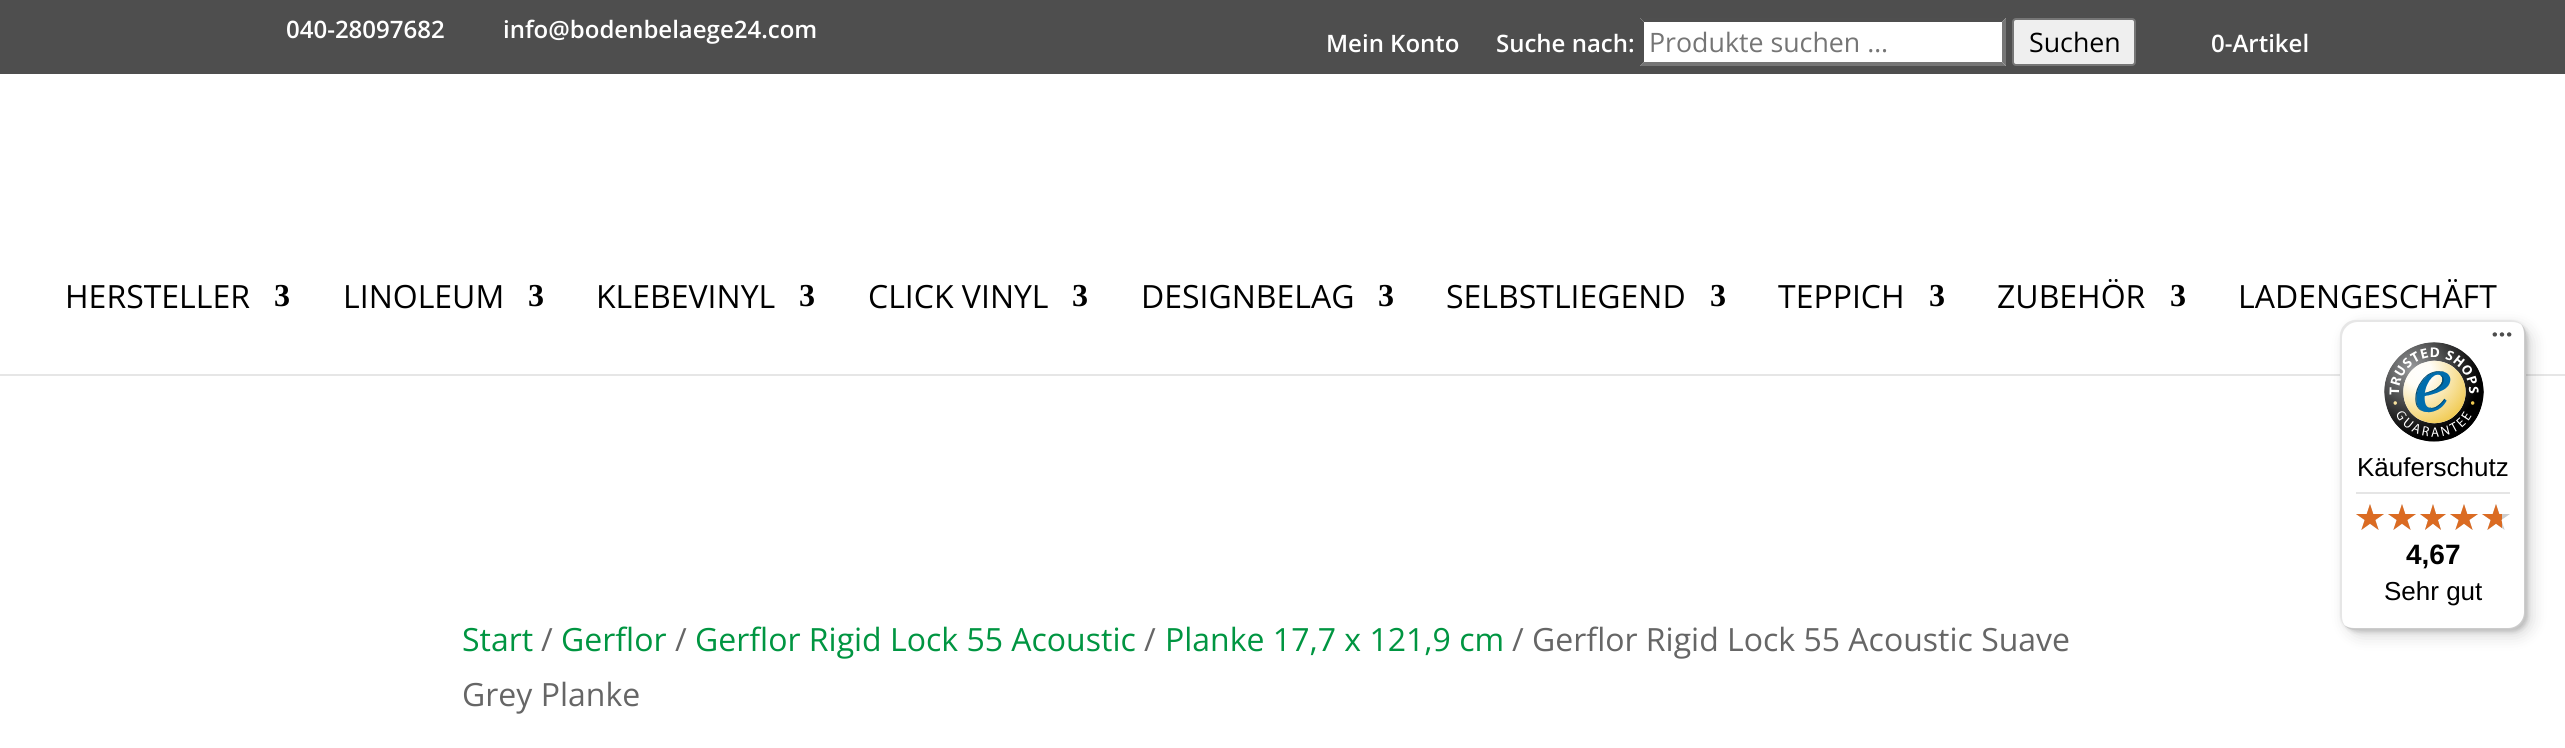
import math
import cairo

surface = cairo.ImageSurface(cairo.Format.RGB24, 2565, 748)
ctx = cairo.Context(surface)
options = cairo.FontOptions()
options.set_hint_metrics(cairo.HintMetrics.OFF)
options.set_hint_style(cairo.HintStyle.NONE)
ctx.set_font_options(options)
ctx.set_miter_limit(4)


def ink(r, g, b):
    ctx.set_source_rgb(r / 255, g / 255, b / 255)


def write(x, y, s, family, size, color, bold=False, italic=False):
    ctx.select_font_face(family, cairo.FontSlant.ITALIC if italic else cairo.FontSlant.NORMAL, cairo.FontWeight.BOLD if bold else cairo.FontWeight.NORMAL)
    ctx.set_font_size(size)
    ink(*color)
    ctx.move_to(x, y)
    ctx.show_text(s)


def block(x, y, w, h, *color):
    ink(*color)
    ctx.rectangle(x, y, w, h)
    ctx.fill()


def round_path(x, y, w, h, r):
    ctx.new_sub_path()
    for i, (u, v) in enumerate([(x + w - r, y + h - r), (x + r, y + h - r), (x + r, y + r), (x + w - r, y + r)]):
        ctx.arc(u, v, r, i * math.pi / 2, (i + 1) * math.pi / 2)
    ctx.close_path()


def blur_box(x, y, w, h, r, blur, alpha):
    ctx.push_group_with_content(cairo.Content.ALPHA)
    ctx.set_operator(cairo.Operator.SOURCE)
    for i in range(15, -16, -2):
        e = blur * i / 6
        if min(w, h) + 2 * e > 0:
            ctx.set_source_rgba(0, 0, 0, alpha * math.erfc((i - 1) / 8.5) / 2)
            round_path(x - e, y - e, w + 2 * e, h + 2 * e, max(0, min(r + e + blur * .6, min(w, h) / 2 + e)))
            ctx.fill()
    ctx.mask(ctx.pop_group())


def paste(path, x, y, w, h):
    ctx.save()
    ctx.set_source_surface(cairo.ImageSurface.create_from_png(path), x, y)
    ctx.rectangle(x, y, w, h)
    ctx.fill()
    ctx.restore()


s1 = dict(family="Open Sans SemiBold", size=24, color=(255, 255, 255))
s2 = dict(family="Open Sans", size=26.75, color=(117, 117, 117))
s3 = dict(family="Open Sans", size=26.75, color=(0, 0, 0))
s4 = dict(family="Open Sans", size=32, color=(0, 0, 0))
s5 = dict(family="Liberation Serif", size=32, color=(0, 0, 0), bold=True)
s6 = dict(family="Open Sans", size=32, color=(0, 149, 65))
s7 = dict(family="Open Sans", size=32, color=(102, 102, 102))
s8 = dict(family="Liberation Sans", size=26, color=(0, 0, 0))
s9 = dict(family="Liberation Sans", size=28, color=(0, 0, 0), bold=True)

ink(255, 255, 255)
ctx.paint()
block(0, 0, 2565, 74, 78, 78, 78)
write(286, 38, "040-28097682", **s1)
write(503, 38, "info@bodenbelaege24.com", **s1)
write(1326, 52, "Mein Konto", **s1)
write(1496, 52, "Suche nach:", **s1)
block(1640, 18, 366, 48, 255, 255, 255)
ink(79, 79, 79)
ctx.new_path()
ctx.move_to(1640, 18)
ctx.line_to(2006, 18)
ctx.line_to(2002, 22)
ctx.line_to(1644, 22)
ctx.close_path()
ctx.fill()
ink(118, 118, 118)
ctx.new_path()
ctx.move_to(2006, 18)
ctx.line_to(2006, 66)
ctx.line_to(2002, 62)
ctx.line_to(2002, 22)
ctx.close_path()
ctx.fill()
ctx.new_path()
ctx.move_to(2006, 66)
ctx.line_to(1640, 66)
ctx.line_to(1644, 62)
ctx.line_to(2002, 62)
ctx.close_path()
ctx.fill()
ink(79, 79, 79)
ctx.new_path()
ctx.move_to(1640, 66)
ctx.line_to(1640, 18)
ctx.line_to(1644, 22)
ctx.line_to(1644, 62)
ctx.close_path()
ctx.fill()
write(1649, 52, "Produkte suchen …", **s2)
ink(239, 239, 239)
round_path(2013, 19, 122, 46, 3)
ctx.fill_preserve()
ink(118, 118, 118)
ctx.stroke()
write(2029, 52, "Suchen", **s3)
write(2211, 52, "0-Artikel", **s1)
block(0, 374, 2565, 2, 230, 230, 230)
write(65, 308, "HERSTELLER", **s4)
write(274, 306, "3", **s5)
write(343, 308, "LINOLEUM", **s4)
write(528, 306, "3", **s5)
write(596, 308, "KLEBEVINYL", **s4)
write(799, 306, "3", **s5)
write(868, 308, "CLICK VINYL", **s4)
write(1072, 306, "3", **s5)
write(1141, 308, "DESIGNBELAG", **s4)
write(1378, 306, "3", **s5)
write(1446, 308, "SELBSTLIEGEND", **s4)
write(1710, 306, "3", **s5)
write(1778, 308, "TEPPICH", **s4)
write(1929, 306, "3", **s5)
write(1997, 308, "ZUBEHÖR", **s4)
write(2170, 306, "3", **s5)
write(2238, 308, "LADENGESCHÄFT", **s4)
write(462, 651, "Start", **s6)
write(541, 651, "/", **s7)
write(561, 651, "Gerflor", **s6)
write(675, 651, "/", **s7)
write(695, 651, "Gerflor Rigid Lock 55 Acoustic", **s6)
write(1144, 651, "/", **s7)
write(1165, 651, "Planke 17,7 x 121,9 cm", **s6)
write(1512, 651, "/ Gerflor Rigid Lock 55 Acoustic Suave", **s7)
write(462, 706, "Grey Planke", **s7)
ink(0, 0, 0)
blur_box(2346, 326, 186, 310, 16, 8, 0.15)
blur_box(2342, 322, 186, 310, 16, 2, 0.15)
ink(255, 255, 255)
round_path(2340, 320, 186, 310, 16)
ctx.fill()
ctx.set_source_rgba(0, 0, 0, 0.1)
ctx.new_path()
ctx.move_to(2358, 322)
ctx.line_to(2512, 322)
ctx.curve_to(2516, 322, 2519, 323, 2522, 325)
ctx.curve_to(2519, 322, 2515, 320, 2510, 320)
ctx.line_to(2356, 320)
ctx.curve_to(2347, 320, 2340, 327, 2340, 336)
ctx.line_to(2340, 614)
ctx.curve_to(2340, 619, 2342, 623, 2345, 626)
ctx.curve_to(2343, 623, 2342, 620, 2342, 616)
ctx.line_to(2342, 338)
ctx.curve_to(2342, 329, 2349, 322, 2358, 322)
ctx.close_path()
ctx.fill()
ctx.set_source_rgba(0, 0, 0, 0.2)
ctx.new_path()
ctx.move_to(2344, 625)
ctx.curve_to(2347, 628, 2351, 630, 2356, 630)
ctx.line_to(2510, 630)
ctx.curve_to(2519, 630, 2526, 623, 2526, 614)
ctx.line_to(2526, 336)
ctx.curve_to(2526, 331, 2524, 327, 2521, 324)
ctx.curve_to(2523, 327, 2524, 330, 2524, 334)
ctx.line_to(2524, 612)
ctx.curve_to(2524, 621, 2517, 628, 2508, 628)
ctx.line_to(2354, 628)
ctx.curve_to(2350, 628, 2347, 627, 2344, 625)
ctx.close_path()
ctx.fill()
ctx.set_source_rgba(0.196, 0.196, 0.196, 0.2)
ctx.new_path()
ctx.move_to(2345, 625)
ctx.curve_to(2348, 628, 2352, 630, 2356, 630)
ctx.line_to(2510, 630)
ctx.curve_to(2519, 630, 2526, 623, 2526, 614)
ctx.line_to(2526, 336)
ctx.curve_to(2526, 332, 2524, 328, 2521, 325)
ctx.curve_to(2524, 328, 2525, 331, 2525, 335)
ctx.line_to(2525, 613)
ctx.curve_to(2525, 622, 2518, 629, 2509, 629)
ctx.line_to(2355, 629)
ctx.curve_to(2351, 629, 2348, 628, 2345, 625)
ctx.close_path()
ctx.fill()
ctx.set_source_rgba(1, 1, 1, 0.3)
ctx.new_path()
ctx.move_to(2345, 625)
ctx.curve_to(2348, 628, 2352, 630, 2356, 630)
ctx.line_to(2510, 630)
ctx.curve_to(2519, 630, 2526, 623, 2526, 614)
ctx.line_to(2526, 336)
ctx.curve_to(2526, 332, 2524, 328, 2521, 325)
ctx.curve_to(2524, 328, 2525, 331, 2525, 335)
ctx.line_to(2525, 613)
ctx.curve_to(2525, 622, 2518, 629, 2509, 629)
ctx.line_to(2355, 629)
ctx.curve_to(2351, 629, 2348, 628, 2345, 625)
ctx.close_path()
ctx.fill()
paste("pic1.png", 2492, 332, 20, 5)
paste("pic2.png", 2384, 342, 100, 100)
write(2357, 476, "Käuferschutz", **s8)
block(2356, 492, 154, 2, 229, 229, 229)
paste("pic3.png", 2356, 504, 28, 26)
paste("pic3.png", 2388, 504, 28, 26)
paste("pic4.png", 2420, 504, 26, 26)
paste("pic3.png", 2450, 504, 28, 26)
paste("pic3.png", 2482, 504, 28, 26)
paste("pic5.png", 2356, 504, 28, 26)
paste("pic5.png", 2388, 504, 28, 26)
paste("pic6.png", 2420, 504, 26, 26)
paste("pic5.png", 2450, 504, 28, 26)
paste("pic7.png", 2482, 504, 20, 26)
write(2406, 564, "4,67", **s9)
write(2384, 600, "Sehr gut", **s8)
surface.write_to_png("screenshot.png")
